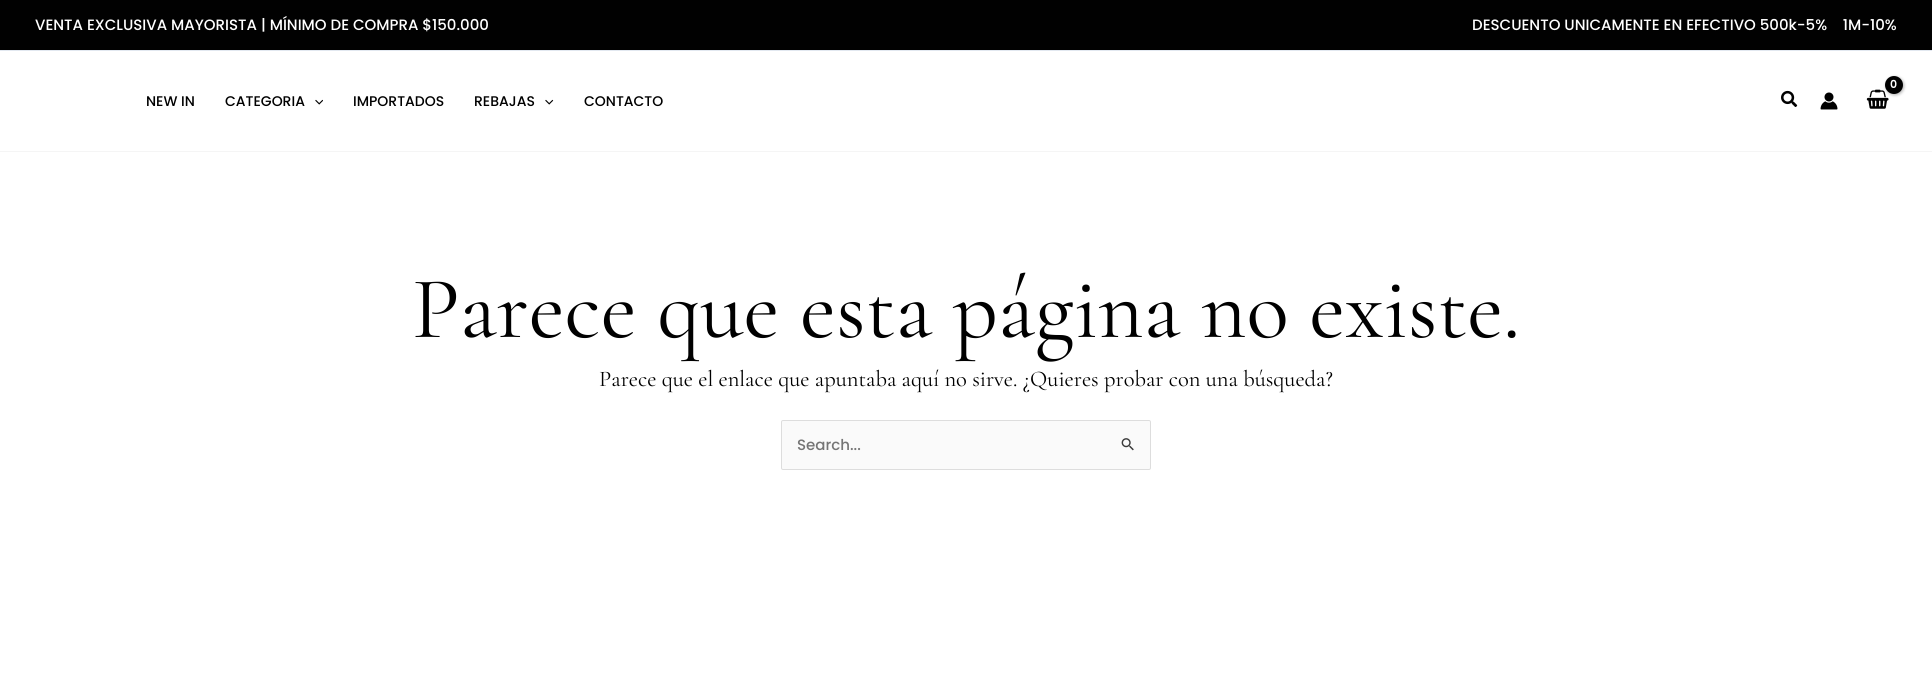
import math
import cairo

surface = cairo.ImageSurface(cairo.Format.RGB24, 1932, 676)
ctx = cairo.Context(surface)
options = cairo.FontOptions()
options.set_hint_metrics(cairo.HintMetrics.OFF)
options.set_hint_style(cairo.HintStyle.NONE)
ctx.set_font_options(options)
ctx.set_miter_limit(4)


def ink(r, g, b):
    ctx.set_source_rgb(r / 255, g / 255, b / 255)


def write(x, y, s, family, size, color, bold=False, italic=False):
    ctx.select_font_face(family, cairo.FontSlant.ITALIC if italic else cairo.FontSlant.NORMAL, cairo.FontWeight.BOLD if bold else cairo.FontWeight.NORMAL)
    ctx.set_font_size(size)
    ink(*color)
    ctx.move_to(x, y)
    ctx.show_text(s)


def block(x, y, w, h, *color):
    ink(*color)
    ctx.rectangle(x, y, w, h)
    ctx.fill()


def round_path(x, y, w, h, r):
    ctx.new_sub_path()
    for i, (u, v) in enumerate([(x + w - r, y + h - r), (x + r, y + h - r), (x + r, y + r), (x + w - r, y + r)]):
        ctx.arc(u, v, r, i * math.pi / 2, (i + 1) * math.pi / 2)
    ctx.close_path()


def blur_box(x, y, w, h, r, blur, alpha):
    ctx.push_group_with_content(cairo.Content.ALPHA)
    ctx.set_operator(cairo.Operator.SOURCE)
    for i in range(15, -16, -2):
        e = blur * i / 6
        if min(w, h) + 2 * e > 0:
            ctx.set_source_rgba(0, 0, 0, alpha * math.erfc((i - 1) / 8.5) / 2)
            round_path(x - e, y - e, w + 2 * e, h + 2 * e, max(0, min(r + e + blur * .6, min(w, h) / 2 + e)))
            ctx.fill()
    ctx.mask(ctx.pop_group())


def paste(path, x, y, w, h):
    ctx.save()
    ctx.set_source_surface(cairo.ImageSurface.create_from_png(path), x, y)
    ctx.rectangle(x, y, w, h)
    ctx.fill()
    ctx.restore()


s1 = dict(family="Poppins Medium", size=15, color=(255, 255, 255))
s2 = dict(family="Poppins SemiBold", size=11, color=(255, 255, 255))
s3 = dict(family="Poppins Medium", size=14, color=(0, 0, 0))
s4 = dict(family="Cormorant Garamond Light", size=88, color=(0, 0, 0))
s5 = dict(family="Cormorant Garamond Light", size=22.5, color=(0, 0, 0))
s6 = dict(family="Poppins Medium", size=15, color=(117, 117, 117))

ink(255, 255, 255)
ctx.paint()
block(0, 0, 1932, 50, 1, 1, 1)
block(0, 50, 1932, 1, 226, 232, 240)
write(35, 30, "VENTA EXCLUSIVA MAYORISTA | MÍNIMO DE COMPRA $150.000", **s1)
write(1472, 30, "DESCUENTO UNICAMENTE EN EFECTIVO 500k-5%    1M-10%", **s1)
block(0, 151, 1932, 1, 245, 245, 245)
paste("pic1.png", 1866, 89, 23, 20)
ink(0, 0, 0)
blur_box(1886, 77, 18, 18, 9, 1.5, 0.3)
ink(1, 1, 1)
ctx.arc(1894, 85, 9, 0, 2 * math.pi)
ctx.fill()
write(1890, 88, "0", **s2)
paste("pic2.png", 1781, 90, 17, 17)
paste("pic3.png", 1820, 92, 18, 18)
write(146, 106, "NEW IN", **s3)
write(225, 106, "CATEGORIA", **s3)
paste("pic4.png", 315, 99, 8, 6)
write(353, 106, "IMPORTADOS", **s3)
write(474, 106, "REBAJAS", **s3)
paste("pic5.png", 545, 99, 9, 6)
write(584, 106, "CONTACTO", **s3)
write(412, 337, "Parece que esta página no existe.", **s4)
write(599, 386, "Parece que el enlace que apuntaba aquí no sirve. ¿Quieres probar con una búsqueda?", **s5)
ink(250, 250, 250)
round_path(781.5, 420.5, 369, 49, 1.5)
ctx.fill_preserve()
ink(221, 221, 221)
ctx.set_line_width(1)
ctx.stroke()
write(797, 450, "Search...", **s6)
paste("pic6.png", 1121, 438, 13, 13)
surface.write_to_png("screenshot.png")
